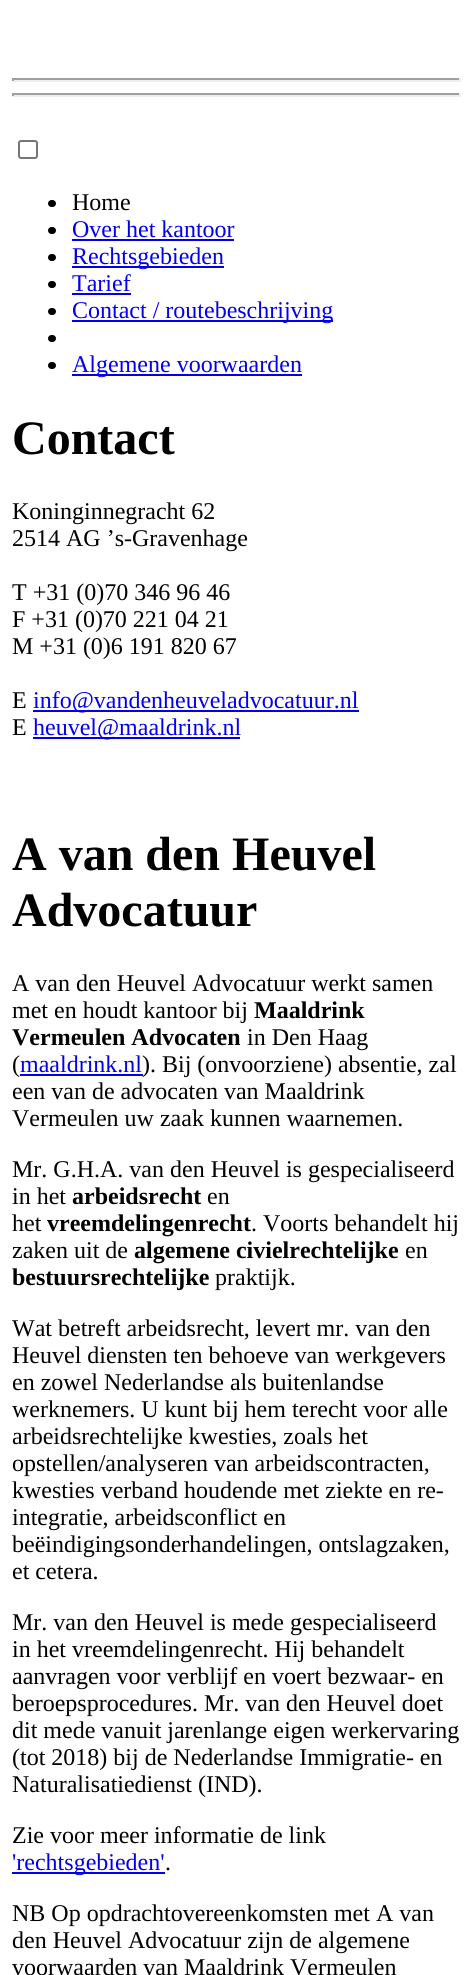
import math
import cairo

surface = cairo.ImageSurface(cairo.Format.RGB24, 472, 1975)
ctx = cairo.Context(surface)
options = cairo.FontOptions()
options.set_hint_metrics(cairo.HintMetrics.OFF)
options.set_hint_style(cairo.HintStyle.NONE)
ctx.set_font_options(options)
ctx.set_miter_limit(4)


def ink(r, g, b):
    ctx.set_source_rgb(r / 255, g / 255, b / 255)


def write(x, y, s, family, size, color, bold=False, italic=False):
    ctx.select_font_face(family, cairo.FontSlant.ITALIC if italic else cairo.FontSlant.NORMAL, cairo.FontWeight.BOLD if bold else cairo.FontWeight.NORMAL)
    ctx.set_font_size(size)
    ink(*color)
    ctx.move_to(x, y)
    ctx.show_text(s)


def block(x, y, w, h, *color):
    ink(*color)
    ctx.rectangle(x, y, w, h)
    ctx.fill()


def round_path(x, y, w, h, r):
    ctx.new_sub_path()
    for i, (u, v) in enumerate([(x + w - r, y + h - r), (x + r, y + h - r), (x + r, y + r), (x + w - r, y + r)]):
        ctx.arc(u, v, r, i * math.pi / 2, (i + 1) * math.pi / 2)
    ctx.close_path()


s1 = dict(family="Liberation Serif", size=24, color=(0, 0, 0))
s2 = dict(family="Liberation Serif", size=24, color=(0, 0, 238))
s3 = dict(family="Liberation Serif", size=48, color=(0, 0, 0), bold=True)
s4 = dict(family="Liberation Serif", size=24, color=(0, 0, 0), bold=True)

ink(255, 255, 255)
ctx.paint()
block(12, 78, 449, 2, 159, 159, 159)
block(459, 78, 2, 3, 238, 238, 238)
block(12, 80, 449, 2, 238, 238, 238)
block(12, 78, 2, 3, 159, 159, 159)
block(12, 93, 449, 2, 159, 159, 159)
block(459, 93, 2, 3, 238, 238, 238)
block(12, 95, 449, 2, 238, 238, 238)
block(12, 93, 2, 3, 159, 159, 159)
round_path(19, 141, 18, 17, 2)
ink(118, 118, 118)
ctx.stroke()
ink(0, 0, 0)
round_path(48, 200, 8, 7, 3.5)
ctx.fill()
write(72, 210, "Home", **s1)
round_path(48, 227, 8, 7, 3.5)
ctx.fill()
write(72, 237, "Over het kantoor", **s2)
block(72, 239, 162, 2, 0, 0, 238)
ink(0, 0, 0)
round_path(48, 254, 8, 7, 3.5)
ctx.fill()
block(72, 266, 152, 2, 0, 0, 238)
write(72, 264, "Rechtsgebieden", **s2)
ink(0, 0, 0)
round_path(48, 281, 8, 7, 3.5)
ctx.fill()
write(72, 291, "Tarief", **s2)
block(72, 293, 59, 2, 0, 0, 238)
ink(0, 0, 0)
round_path(48, 308, 8, 7, 3.5)
ctx.fill()
block(72, 320, 261, 2, 0, 0, 238)
write(72, 318, "Contact / routebeschrijving", **s2)
ink(0, 0, 0)
round_path(48, 335, 8, 7, 3.5)
ctx.fill()
round_path(48, 362, 8, 7, 3.5)
ctx.fill()
block(72, 374, 230, 2, 0, 0, 238)
write(72, 372, "Algemene voorwaarden", **s2)
write(12, 454, "Contact", **s3)
write(12, 519, "Koninginnegracht 62", **s1)
write(12, 546, "2514 AG ’s-Gravenhage", **s1)
write(12, 600, "T +31 (0)70 346 96 46", **s1)
write(12, 627, "F +31 (0)70 221 04 21", **s1)
write(12, 654, "M +31 (0)6 191 820 67", **s1)
write(12, 708, "E", **s1)
block(33, 710, 326, 2, 0, 0, 238)
write(33, 708, "info@vandenheuveladvocatuur.nl", **s2)
write(12, 735, "E", **s1)
block(33, 737, 207, 2, 0, 0, 238)
write(33, 735, "heuvel@maaldrink.nl", **s2)
write(12, 870, "A van den Heuvel", **s3)
write(12, 926, "Advocatuur", **s3)
write(12, 991, "A van den Heuvel Advocatuur werkt samen", **s1)
write(12, 1018, "met en houdt kantoor bij", **s1)
write(254, 1018, "Maaldrink", **s4)
write(12, 1045, "Vermeulen Advocaten", **s4)
write(247, 1045, "in Den Haag", **s1)
write(12, 1072, "(", **s1)
write(20, 1072, "maaldrink.nl", **s2)
block(20, 1074, 123, 2, 0, 0, 238)
write(142, 1072, "). Bij (onvoorziene) absentie, zal", **s1)
write(12, 1099, "een van de advocaten van Maaldrink", **s1)
write(12, 1126, "Vermeulen uw zaak kunnen waarnemen.", **s1)
write(12, 1177, "Mr. G.H.A. van den Heuvel is gespecialiseerd", **s1)
write(12, 1204, "in het", **s1)
write(72, 1204, "arbeidsrecht", **s4)
write(207, 1204, "en", **s1)
write(12, 1231, "het", **s1)
write(47, 1231, "vreemdelingenrecht", **s4)
write(251, 1231, ". Voorts behandelt hij", **s1)
write(12, 1258, "zaken uit de", **s1)
write(134, 1258, "algemene civielrechtelijke", **s4)
write(405, 1258, "en", **s1)
write(12, 1285, "bestuursrechtelijke", **s4)
write(215, 1285, "praktijk.", **s1)
write(12, 1336, "Wat betreft arbeidsrecht, levert mr. van den", **s1)
write(12, 1363, "Heuvel diensten ten behoeve van werkgevers", **s1)
write(12, 1390, "en zowel Nederlandse als buitenlandse", **s1)
write(12, 1417, "werknemers. U kunt bij hem terecht voor alle", **s1)
write(12, 1444, "arbeidsrechtelijke kwesties, zoals het", **s1)
write(12, 1471, "opstellen/analyseren van arbeidscontracten,", **s1)
write(12, 1498, "kwesties verband houdende met ziekte en re-", **s1)
write(12, 1525, "integratie, arbeidsconflict en", **s1)
write(12, 1552, "beëindigingsonderhandelingen, ontslagzaken,", **s1)
write(12, 1579, "et cetera.", **s1)
write(12, 1630, "Mr. van den Heuvel is mede gespecialiseerd", **s1)
write(12, 1657, "in het vreemdelingenrecht. Hij behandelt", **s1)
write(12, 1684, "aanvragen voor verblijf en voert bezwaar- en", **s1)
write(12, 1711, "beroepsprocedures. Mr. van den Heuvel doet", **s1)
write(12, 1738, "dit mede vanuit jarenlange eigen werkervaring", **s1)
write(12, 1765, "(tot 2018) bij de Nederlandse Immigratie- en", **s1)
write(12, 1792, "Naturalisatiedienst (IND).", **s1)
write(12, 1843, "Zie voor meer informatie de link", **s1)
block(12, 1872, 153, 2, 0, 0, 238)
write(12, 1870, "'rechtsgebieden'", **s2)
write(165, 1870, ".", **s1)
write(12, 1921, "NB Op opdrachtovereenkomsten met A van", **s1)
write(12, 1948, "den Heuvel Advocatuur zijn de algemene", **s1)
write(12, 1975, "voorwaarden van Maaldrink Vermeulen", **s1)
surface.write_to_png("screenshot.png")
